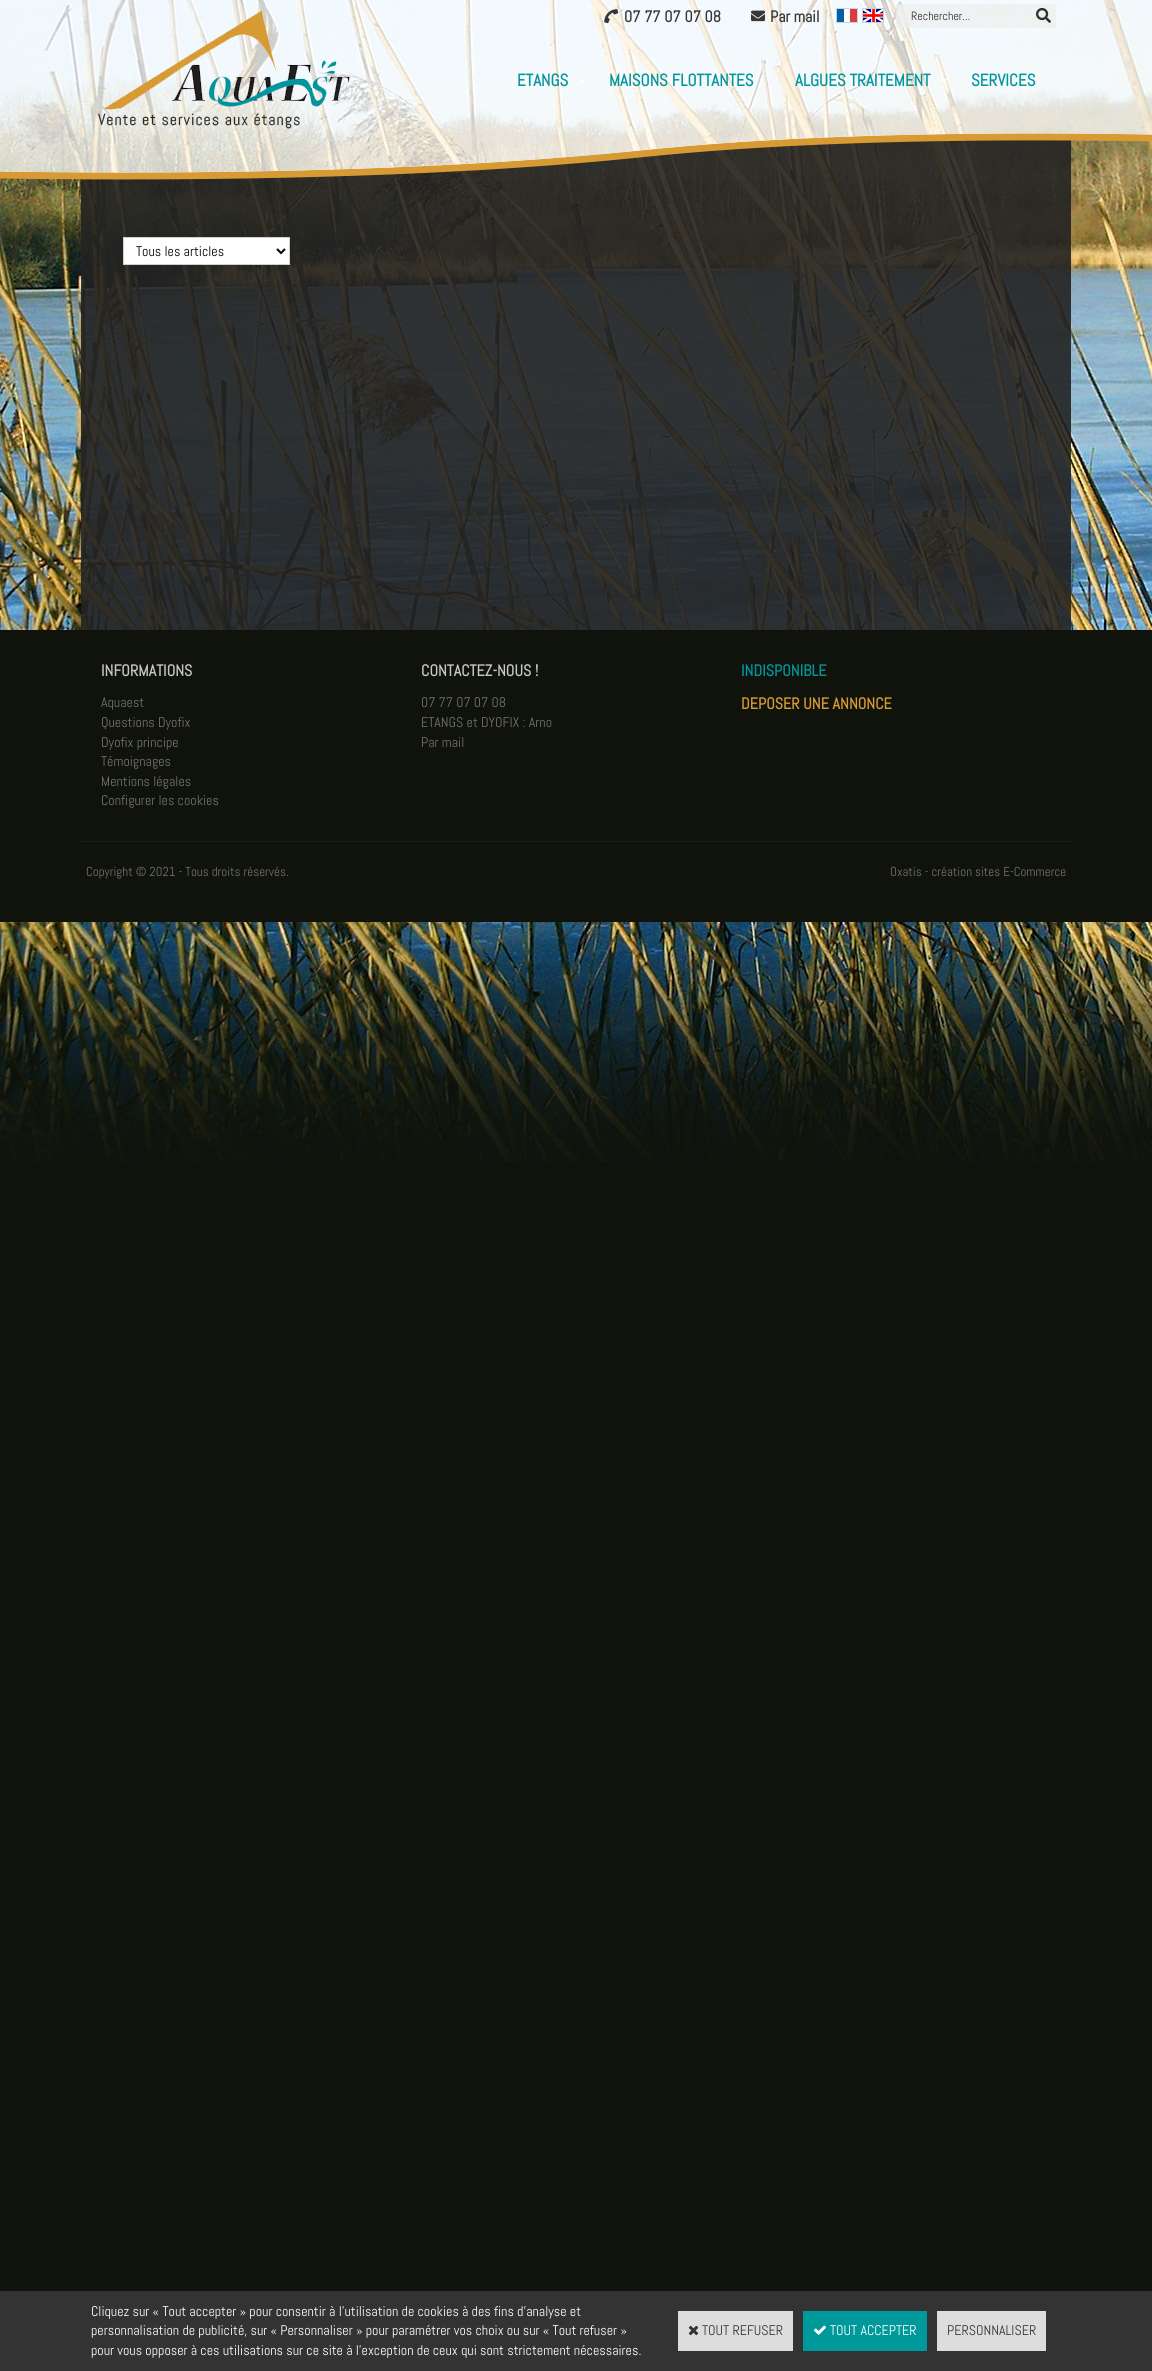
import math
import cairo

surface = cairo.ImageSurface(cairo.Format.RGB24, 1152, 2371)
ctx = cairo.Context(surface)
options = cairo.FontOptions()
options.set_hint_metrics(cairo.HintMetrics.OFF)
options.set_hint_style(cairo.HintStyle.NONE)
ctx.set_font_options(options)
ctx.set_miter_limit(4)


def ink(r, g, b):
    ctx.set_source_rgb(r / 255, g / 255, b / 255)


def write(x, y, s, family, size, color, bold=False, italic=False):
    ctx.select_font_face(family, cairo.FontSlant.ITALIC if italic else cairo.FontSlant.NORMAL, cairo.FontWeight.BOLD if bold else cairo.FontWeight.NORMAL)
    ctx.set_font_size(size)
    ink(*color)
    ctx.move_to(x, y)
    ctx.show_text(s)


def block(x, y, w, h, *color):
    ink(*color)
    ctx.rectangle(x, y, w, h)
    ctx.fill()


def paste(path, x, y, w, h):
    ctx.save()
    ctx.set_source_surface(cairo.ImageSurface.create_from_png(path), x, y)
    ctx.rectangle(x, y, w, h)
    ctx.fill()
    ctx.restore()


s1 = dict(family="Abel", size=16, color=(55, 55, 55), bold=True)
s2 = dict(family="Abel", size=12, color=(48, 48, 48))
s3 = dict(family="Abel", size=17, color=(3, 149, 157), bold=True)
s4 = dict(family="Abel", size=14, color=(0, 0, 0))
s5 = dict(family="Abel", size=16, color=(198, 198, 198), bold=True)
s6 = dict(family="Abel", size=14, color=(114, 113, 113))
s7 = dict(family="Abel", size=16, color=(3, 149, 157), bold=True)
s8 = dict(family="Abel", size=16, color=(216, 154, 51), bold=True)
s9 = dict(family="Abel", size=13, color=(114, 113, 113))
s10 = dict(family="Abel", size=14, color=(255, 255, 255))
s11 = dict(family="Abel", size=14, color=(55, 55, 55))

ink(16, 19, 12)
ctx.paint()
paste("pic1.png", 0, 0, 1152, 1162)
ctx.set_source_rgba(1, 1, 1, 0.76)
ctx.rectangle(0, 0, 1152, 132)
ctx.fill()
paste("pic2.png", 98, 10, 252, 119)
paste("pic3.png", 604, 9, 15, 15)
write(624, 22, "07 77 07 07 08", **s1)
paste("pic4.png", 751, 10, 14, 12)
write(770, 22, "Par mail", **s1)
paste("pic5.png", 837, 9, 20, 13)
ctx.rectangle(836.5, 8.5, 21, 14)
ink(208, 208, 208)
ctx.set_line_width(1)
ctx.stroke()
paste("pic6.png", 863, 9, 20, 13)
ctx.rectangle(862.5, 8.5, 21, 14)
ctx.stroke()
ctx.set_source_rgba(0.933, 0.933, 0.933, 0.8)
ctx.rectangle(896, 4, 135, 24)
ctx.fill()
write(911, 20, "Rechercher...", **s2)
ctx.set_source_rgba(0.933, 0.933, 0.933, 0.8)
ctx.rectangle(1031, 4, 25, 24)
ctx.fill()
paste("pic7.png", 1036, 7, 15, 16)
write(517, 86, "ETANGS", **s3)
paste("pic8.png", 579, 78, 6, 5)
write(609, 86, "MAISONS FLOTTANTES", **s3)
write(795, 86, "ALGUES TRAITEMENT", **s3)
paste("pic9.png", 940, 78, 8, 5)
write(971, 86, "SERVICES", **s3)
paste("pic11.png", 81, 140, 990, 40)
paste("pic10.png", 0, 132, 1152, 48)
ctx.set_source_rgba(0.137, 0.137, 0.137, 0.9)
ctx.rectangle(81, 180, 990, 450)
ctx.fill()
ink(255, 255, 255)
ctx.rectangle(123.5, 237.5, 166, 27)
ctx.fill_preserve()
ink(208, 208, 208)
ctx.stroke()
ctx.new_path()
ctx.move_to(277, 249)
ctx.line_to(281, 253)
ctx.line_to(285, 249)
ink(0, 0, 0)
ctx.set_line_width(2)
ctx.stroke()
write(136, 256, "Tous les articles", **s4)
block(0, 630, 1152, 292, 16, 19, 12)
write(101, 676, "INFORMATIONS", **s5)
write(101, 707, "Aquaest", **s6)
write(101, 727, "Questions Dyofix", **s6)
write(101, 747, "Dyofix principe", **s6)
write(101, 766, "Témoignages", **s6)
write(101, 786, "Mentions légales", **s6)
write(101, 805, "Configurer les cookies", **s6)
write(421, 676, "CONTACTEZ-NOUS !", **s5)
write(421, 707, "07 77 07 07 08", **s6)
write(421, 727, "ETANGS et DYOFIX : Arno", **s6)
write(421, 747, "Par mail", **s6)
write(741, 676, "INDISPONIBLE", **s7)
write(741, 709, "DEPOSER UNE ANNONCE", **s8)
block(81, 841, 990, 1, 29, 29, 29)
write(86, 876, "Copyright © 2021 - Tous droits réservés.", **s9)
write(890, 876, "Oxatis - création sites E-Commerce", **s9)
block(0, 2291, 1152, 80, 51, 51, 51)
write(91, 2316, "Cliquez sur « Tout accepter » pour consentir à l'utilisation de cookies à des fins d’analyse et", **s10)
write(91, 2335, "personnalisation de publicité, sur « Personnaliser » pour paramétrer vos choix ou sur « Tout refuser »", **s10)
write(91, 2355, "pour vous opposer à ces utilisations sur ce site à l’exception de ceux qui sont strictement nécessaires.", **s10)
block(678, 2311, 115, 40, 221, 221, 221)
paste("pic12.png", 688, 2325, 11, 11)
write(702, 2335, "TOUT REFUSER", **s11)
block(803, 2311, 124, 40, 0, 153, 155)
paste("pic13.png", 814, 2325, 12, 10)
write(830, 2335, "TOUT ACCEPTER", **s10)
block(937, 2311, 109, 40, 221, 221, 221)
write(947, 2335, "PERSONNALISER", **s11)
surface.write_to_png("screenshot.png")
